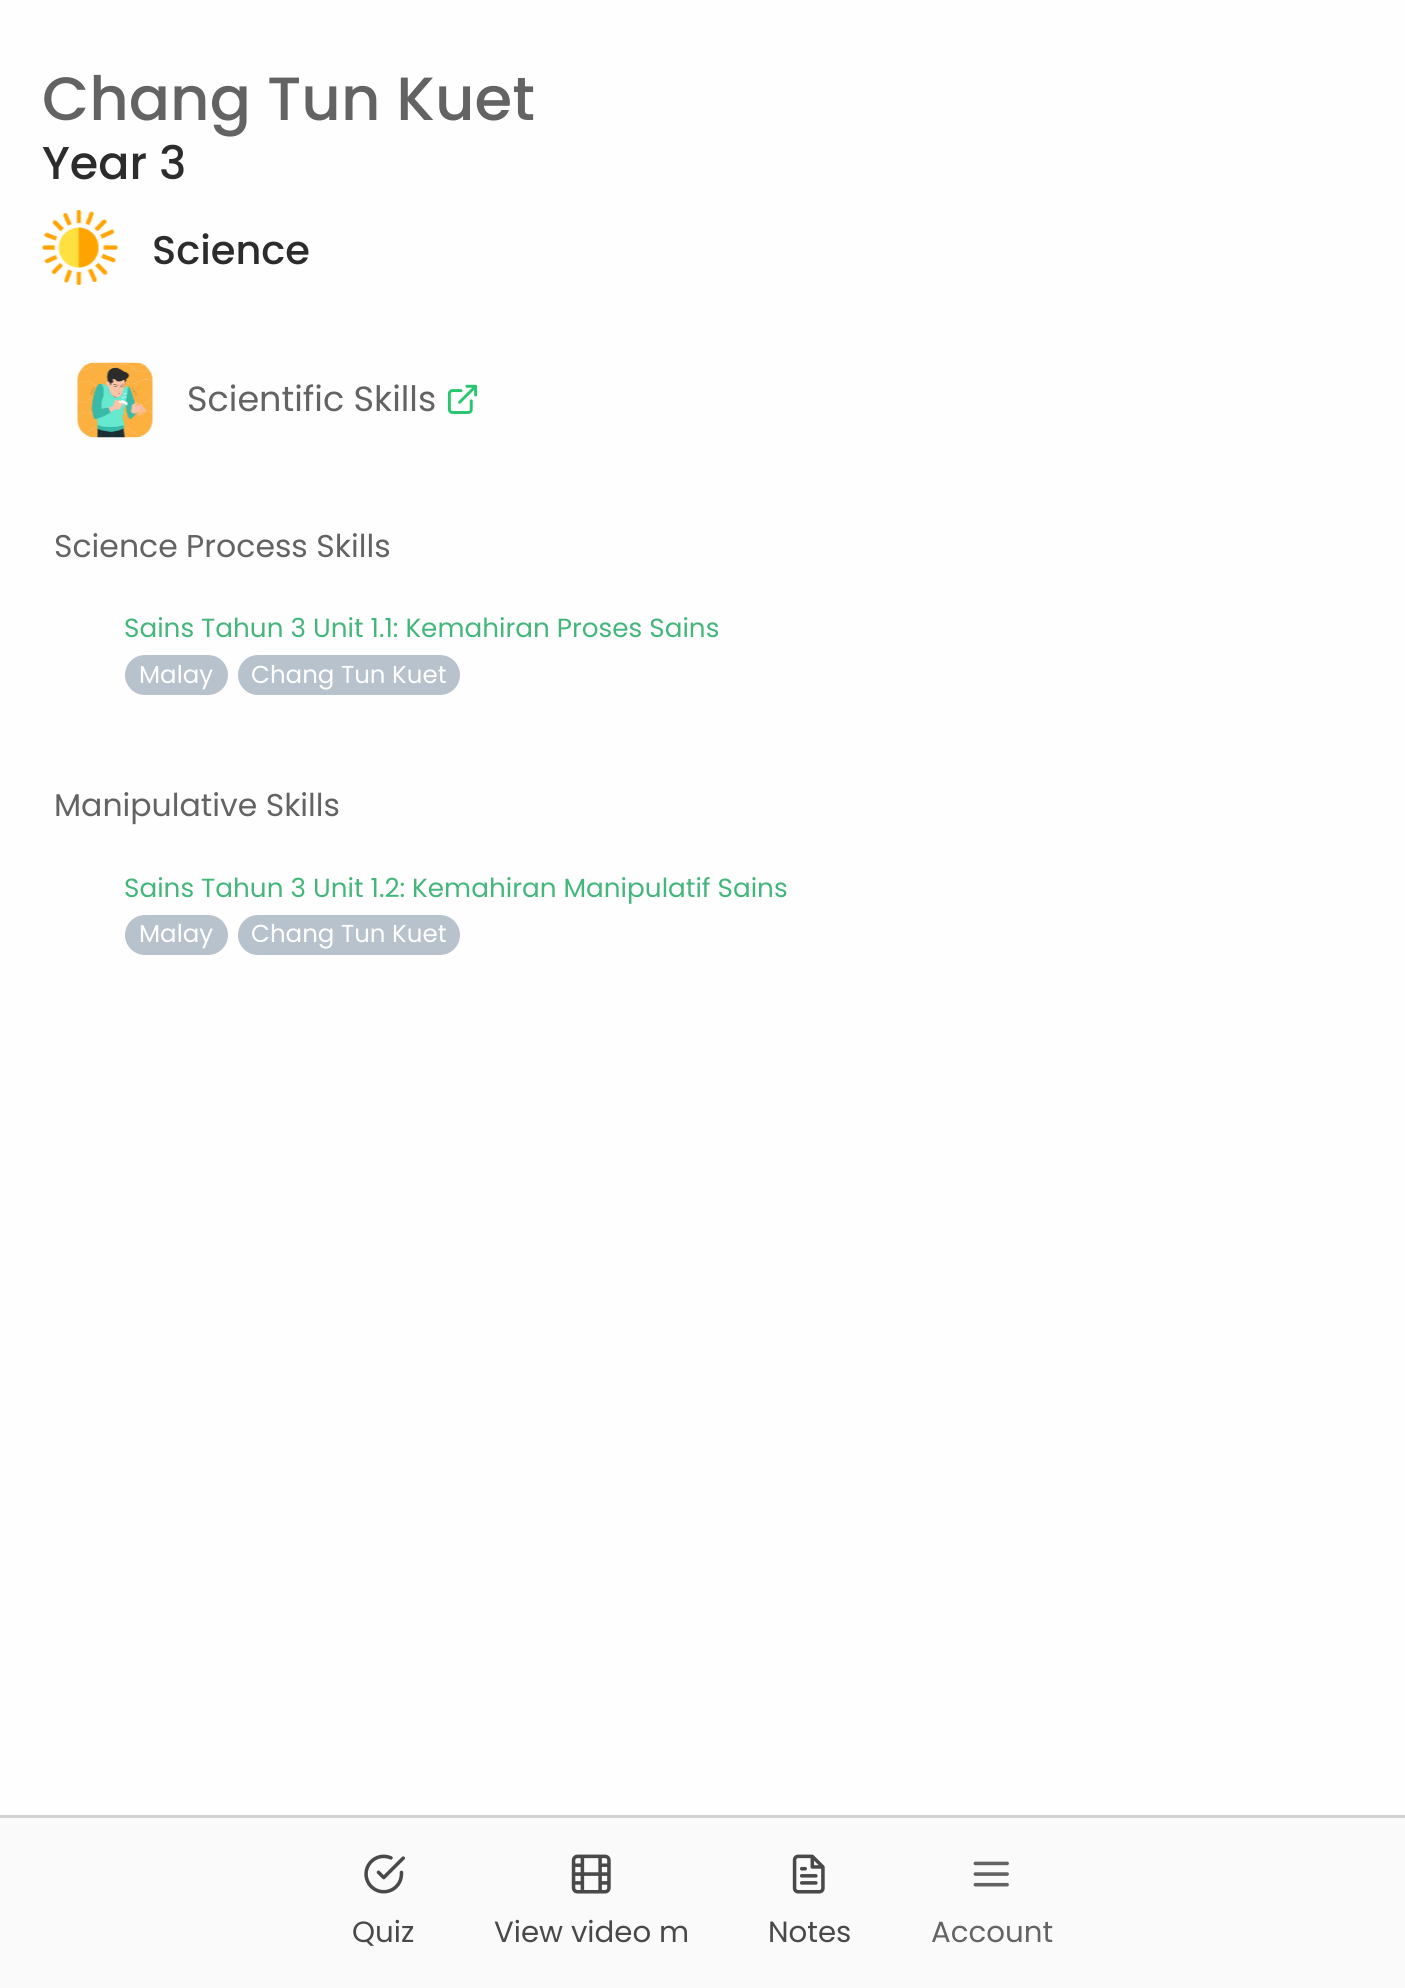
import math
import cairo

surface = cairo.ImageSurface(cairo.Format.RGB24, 1405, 1988)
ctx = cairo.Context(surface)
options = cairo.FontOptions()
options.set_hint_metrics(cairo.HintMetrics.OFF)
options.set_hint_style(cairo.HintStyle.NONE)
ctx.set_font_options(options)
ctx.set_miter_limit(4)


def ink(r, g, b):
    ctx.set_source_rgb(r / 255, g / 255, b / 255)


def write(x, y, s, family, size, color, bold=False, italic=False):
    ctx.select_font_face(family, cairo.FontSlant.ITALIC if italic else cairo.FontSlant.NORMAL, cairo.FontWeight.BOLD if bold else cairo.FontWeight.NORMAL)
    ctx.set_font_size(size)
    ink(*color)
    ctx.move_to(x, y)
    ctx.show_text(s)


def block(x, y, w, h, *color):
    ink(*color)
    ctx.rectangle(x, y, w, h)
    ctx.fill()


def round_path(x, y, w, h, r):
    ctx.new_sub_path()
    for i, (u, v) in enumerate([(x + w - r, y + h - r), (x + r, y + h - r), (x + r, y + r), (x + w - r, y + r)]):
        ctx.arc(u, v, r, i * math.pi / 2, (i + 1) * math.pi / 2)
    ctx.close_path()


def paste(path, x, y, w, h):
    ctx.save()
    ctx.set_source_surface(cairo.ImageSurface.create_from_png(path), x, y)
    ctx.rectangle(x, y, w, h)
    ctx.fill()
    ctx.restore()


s1 = dict(family="Poppins Medium", size=61, color=(99, 99, 99))
s2 = dict(family="Poppins Medium", size=46, color=(44, 44, 44))
s3 = dict(family="Poppins Medium", size=40, color=(44, 44, 44))
s4 = dict(family="Poppins", size=35, color=(99, 99, 99))
s5 = dict(family="Poppins", size=31.5, color=(99, 99, 99))
s6 = dict(family="Poppins", size=26.25, color=(67, 182, 123))
s7 = dict(family="Poppins", size=24.5, color=(255, 255, 255))
s8 = dict(family="Poppins", size=29.25, color=(73, 73, 73))
s9 = dict(family="Poppins", size=29.25, color=(99, 99, 99))

ink(254, 254, 254)
ctx.paint()
write(42, 120, "Chang Tun Kuet", **s1)
write(42, 179, "Year 3", **s2)
paste("pic1.png", 42, 210, 76, 75)
write(152, 264, "Science", **s3)
paste("pic2.png", 77, 362, 76, 76)
write(187, 411, "Scientific Skills", **s4)
paste("pic3.png", 447, 384, 31, 30)
write(54, 557, "Science Process Skills", **s5)
write(124, 637, "Sains Tahun 3 Unit 1.1: Kemahiran Proses Sains", **s6)
ink(184, 194, 204)
round_path(125, 655, 103, 40, 20)
ctx.fill()
write(139, 683, "Malay", **s7)
ink(184, 194, 204)
round_path(238, 655, 222, 40, 20)
ctx.fill()
write(251, 683, "Chang Tun Kuet", **s7)
write(54, 816, "Manipulative Skills", **s5)
write(124, 897, "Sains Tahun 3 Unit 1.2: Kemahiran Manipulatif Sains", **s6)
ink(184, 194, 204)
round_path(125, 915, 103, 40, 20)
ctx.fill()
write(139, 942, "Malay", **s7)
ink(184, 194, 204)
round_path(238, 915, 222, 40, 20)
ctx.fill()
write(251, 942, "Chang Tun Kuet", **s7)
block(0, 1818, 1405, 170, 250, 250, 250)
block(0, 1815, 1405, 3, 209, 209, 209)
paste("pic4.png", 364, 1854, 41, 40)
write(352, 1942, "Quiz", **s8)
paste("pic5.png", 571, 1854, 40, 40)
write(494, 1942, "View video m", **s8)
paste("pic6.png", 792, 1854, 33, 40)
write(768, 1942, "Notes", **s8)
paste("pic7.png", 973, 1861, 36, 26)
write(931, 1942, "Account", **s9)
surface.write_to_png("screenshot.png")
